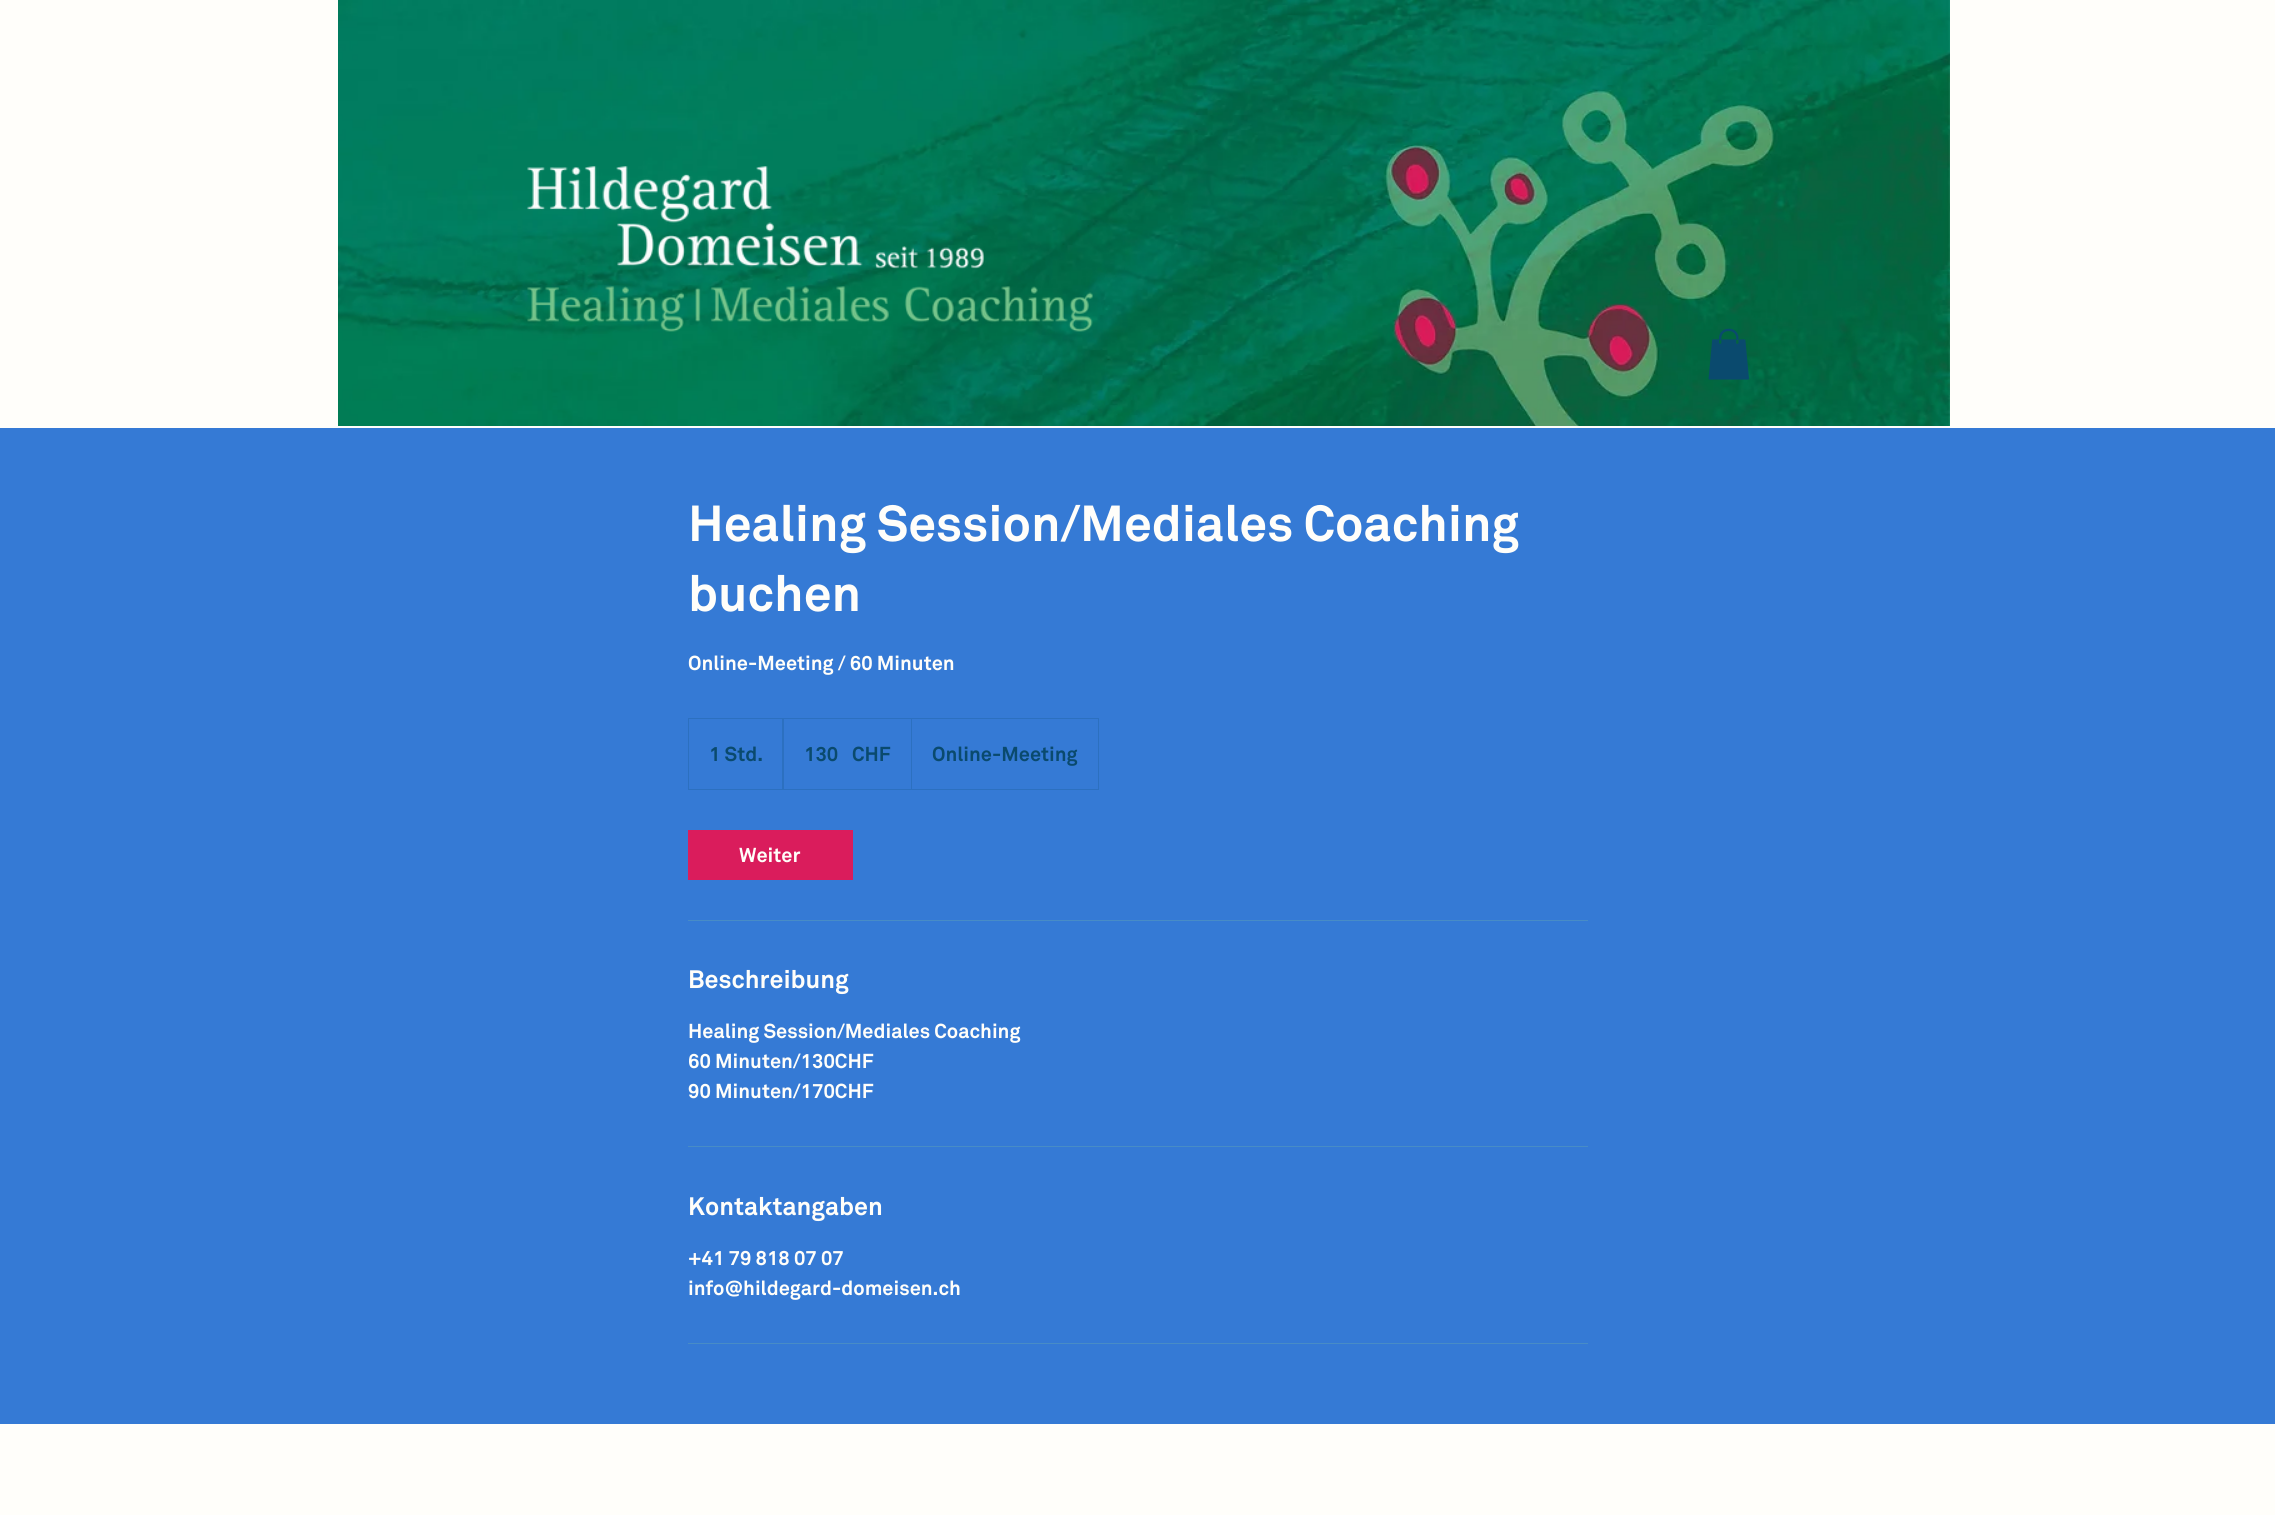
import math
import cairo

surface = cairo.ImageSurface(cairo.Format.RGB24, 2275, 1515)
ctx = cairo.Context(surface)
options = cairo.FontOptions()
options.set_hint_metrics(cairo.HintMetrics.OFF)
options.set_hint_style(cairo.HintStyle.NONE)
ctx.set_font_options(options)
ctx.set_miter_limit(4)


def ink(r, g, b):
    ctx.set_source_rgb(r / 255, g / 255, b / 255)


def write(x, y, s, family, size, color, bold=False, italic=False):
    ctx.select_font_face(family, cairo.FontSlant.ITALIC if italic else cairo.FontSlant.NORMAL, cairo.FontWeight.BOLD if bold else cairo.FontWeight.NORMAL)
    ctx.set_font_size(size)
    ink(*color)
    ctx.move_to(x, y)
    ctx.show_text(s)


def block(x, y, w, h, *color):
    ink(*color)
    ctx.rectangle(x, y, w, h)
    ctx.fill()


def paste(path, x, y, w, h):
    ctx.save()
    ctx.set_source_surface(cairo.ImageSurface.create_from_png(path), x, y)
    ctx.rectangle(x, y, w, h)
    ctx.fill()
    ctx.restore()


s1 = dict(family="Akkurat", size=50, color=(255, 254, 250), bold=True)
s2 = dict(family="Akkurat", size=20, color=(255, 254, 250), bold=True)
s3 = dict(family="Akkurat", size=20, color=(10, 74, 110), bold=True)
s4 = dict(family="Akkurat", size=25, color=(255, 254, 250), bold=True)

ink(255, 254, 250)
ctx.paint()
paste("pic1.png", 338, 0, 1612, 426)
paste("pic2.png", 527, 166, 566, 166)
paste("pic3.png", 1708, 328, 41, 52)
block(0, 428, 2275, 996, 53, 122, 213)
write(688, 541, "Healing Session/Mediales Coaching", **s1)
write(688, 611, "buchen", **s1)
write(688, 670, "Online-Meeting / 60 Minuten", **s2)
ctx.rectangle(688.5, 718.5, 410, 71)
ink(44, 112, 192)
ctx.set_line_width(1)
ctx.stroke()
write(709, 761, "1 Std.", **s3)
ink(44, 112, 192)
ctx.new_path()
ctx.move_to(782, 789)
ctx.line_to(782, 718)
ctx.line_to(784, 719)
ctx.line_to(784, 789)
ctx.close_path()
ctx.fill()
write(804, 761, "130", **s3)
write(852, 761, "CHF", **s3)
ink(44, 112, 192)
ctx.new_path()
ctx.move_to(911, 789)
ctx.line_to(911, 718)
ctx.line_to(912, 719)
ctx.line_to(912, 789)
ctx.close_path()
ctx.fill()
write(932, 761, "Online-Meeting", **s3)
block(688, 830, 165, 50, 218, 28, 92)
write(739, 862, "Weiter", **s2)
block(688, 920, 900, 1, 72, 140, 198)
write(688, 988, "Beschreibung", **s4)
write(688, 1038, "Healing Session/Mediales Coaching", **s2)
write(688, 1068, "60 Minuten/130CHF", **s2)
write(688, 1098, "90 Minuten/170CHF", **s2)
block(688, 1146, 900, 1, 72, 140, 198)
write(688, 1215, "Kontaktangaben", **s4)
write(688, 1265, "+41 79 818 07 07", **s2)
write(688, 1295, "info@hildegard-domeisen.ch", **s2)
block(688, 1343, 900, 1, 72, 140, 198)
surface.write_to_png("screenshot.png")
